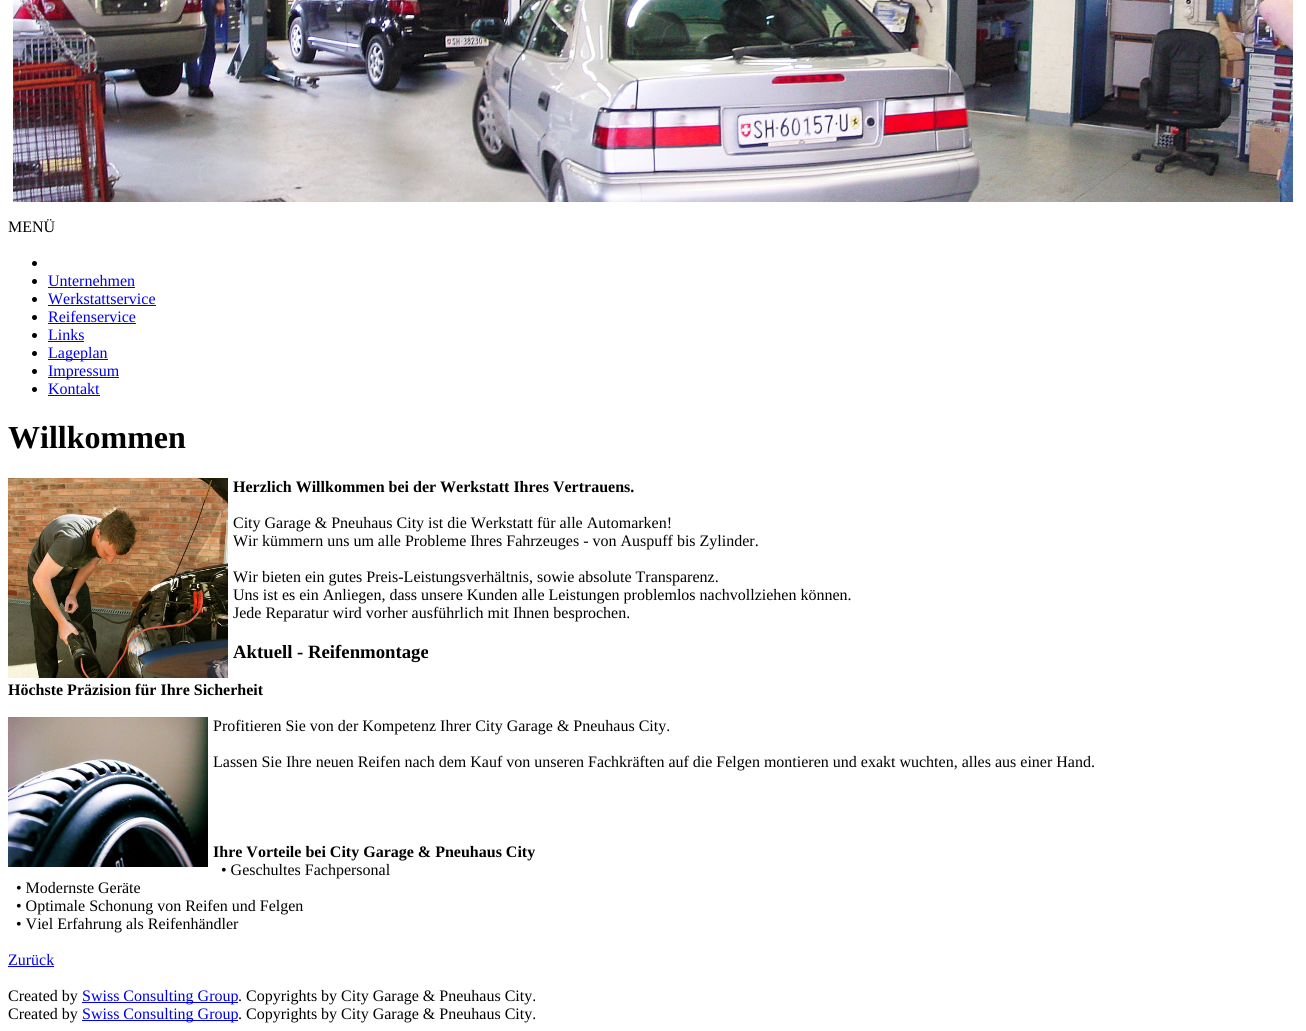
import math
import cairo

surface = cairo.ImageSurface(cairo.Format.RGB24, 1306, 1031)
ctx = cairo.Context(surface)
options = cairo.FontOptions()
options.set_hint_metrics(cairo.HintMetrics.OFF)
options.set_hint_style(cairo.HintStyle.NONE)
ctx.set_font_options(options)
ctx.set_miter_limit(4)


def ink(r, g, b):
    ctx.set_source_rgb(r / 255, g / 255, b / 255)


def write(x, y, s, family, size, color, bold=False, italic=False):
    ctx.select_font_face(family, cairo.FontSlant.ITALIC if italic else cairo.FontSlant.NORMAL, cairo.FontWeight.BOLD if bold else cairo.FontWeight.NORMAL)
    ctx.set_font_size(size)
    ink(*color)
    ctx.move_to(x, y)
    ctx.show_text(s)


def block(x, y, w, h, *color):
    ink(*color)
    ctx.rectangle(x, y, w, h)
    ctx.fill()


def paste(path, x, y, w, h):
    ctx.save()
    ctx.set_source_surface(cairo.ImageSurface.create_from_png(path), x, y)
    ctx.rectangle(x, y, w, h)
    ctx.fill()
    ctx.restore()


s1 = dict(family="Liberation Serif", size=16, color=(0, 0, 0))
s2 = dict(family="Liberation Serif", size=16, color=(0, 0, 238))
s3 = dict(family="Liberation Serif", size=32, color=(0, 0, 0), bold=True)
s4 = dict(family="Liberation Serif", size=16, color=(0, 0, 0), bold=True)
s5 = dict(family="Liberation Serif", size=18.75, color=(0, 0, 0), bold=True)

ink(255, 255, 255)
ctx.paint()
paste("pic1.png", 13, 0, 1280, 202)
write(8, 232, "MENÜ", **s1)
ctx.new_path()
ctx.arc(34.5, 263.5, 2.5, 0, 2 * math.pi)
ctx.fill()
ctx.arc(34.5, 281.5, 2.5, 0, 2 * math.pi)
ctx.fill()
write(48, 286, "Unternehmen", **s2)
block(48, 287, 87, 1, 0, 0, 238)
ink(0, 0, 0)
ctx.new_path()
ctx.arc(34.5, 299.5, 2.5, 0, 2 * math.pi)
ctx.fill()
write(48, 304, "Werkstattservice", **s2)
block(48, 305, 108, 1, 0, 0, 238)
ink(0, 0, 0)
ctx.new_path()
ctx.arc(34.5, 317.5, 2.5, 0, 2 * math.pi)
ctx.fill()
write(48, 322, "Reifenservice", **s2)
block(48, 323, 88, 1, 0, 0, 238)
ink(0, 0, 0)
ctx.new_path()
ctx.arc(34.5, 335.5, 2.5, 0, 2 * math.pi)
ctx.fill()
write(48, 340, "Links", **s2)
block(48, 341, 36, 1, 0, 0, 238)
ink(0, 0, 0)
ctx.new_path()
ctx.arc(34.5, 353.5, 2.5, 0, 2 * math.pi)
ctx.fill()
block(48, 359, 60, 1, 0, 0, 238)
write(48, 358, "Lageplan", **s2)
ink(0, 0, 0)
ctx.new_path()
ctx.arc(34.5, 371.5, 2.5, 0, 2 * math.pi)
ctx.fill()
block(48, 377, 71, 1, 0, 0, 238)
write(48, 376, "Impressum", **s2)
ink(0, 0, 0)
ctx.new_path()
ctx.arc(34.5, 389.5, 2.5, 0, 2 * math.pi)
ctx.fill()
write(48, 394, "Kontakt", **s2)
block(48, 395, 52, 1, 0, 0, 238)
write(8, 448, "Willkommen", **s3)
paste("pic2.png", 8, 478, 220, 200)
write(233, 492, "Herzlich Willkommen bei der Werkstatt Ihres Vertrauens.", **s4)
write(233, 528, "City Garage & Pneuhaus City ist die Werkstatt für alle Automarken!", **s1)
write(233, 546, "Wir kümmern uns um alle Probleme Ihres Fahrzeuges - von Auspuff bis Zylinder.", **s1)
write(233, 582, "Wir bieten ein gutes Preis-Leistungsverhältnis, sowie absolute Transparenz.", **s1)
write(233, 600, "Uns ist es ein Anliegen, dass unsere Kunden alle Leistungen problemlos nachvollziehen können.", **s1)
write(233, 618, "Jede Reparatur wird vorher ausführlich mit Ihnen besprochen.", **s1)
write(233, 658, "Aktuell - Reifenmontage", **s5)
write(8, 695, "Höchste Präzision für Ihre Sicherheit", **s4)
paste("pic3.png", 8, 717, 200, 150)
write(213, 731, "Profitieren Sie von der Kompetenz Ihrer City Garage & Pneuhaus City.", **s1)
write(213, 767, "Lassen Sie Ihre neuen Reifen nach dem Kauf von unseren Fachkräften auf die Felgen montieren und exakt wuchten, alles aus einer Hand.", **s1)
write(213, 857, "Ihre Vorteile bei City Garage & Pneuhaus City", **s4)
write(221, 875, "• Geschultes Fachpersonal", **s1)
write(16, 893, "• Modernste Geräte", **s1)
write(16, 911, "• Optimale Schonung von Reifen und Felgen", **s1)
write(16, 929, "• Viel Erfahrung als Reifenhändler", **s1)
write(8, 965, "Zurück", **s2)
block(8, 966, 46, 1, 0, 0, 238)
write(8, 1001, "Created by", **s1)
block(82, 1002, 156, 1, 0, 0, 238)
write(82, 1001, "Swiss Consulting Group", **s2)
write(238, 1001, ". Copyrights by City Garage & Pneuhaus City.", **s1)
write(8, 1019, "Created by", **s1)
block(82, 1020, 156, 1, 0, 0, 238)
write(82, 1019, "Swiss Consulting Group", **s2)
write(238, 1019, ". Copyrights by City Garage & Pneuhaus City.", **s1)
surface.write_to_png("screenshot.png")
